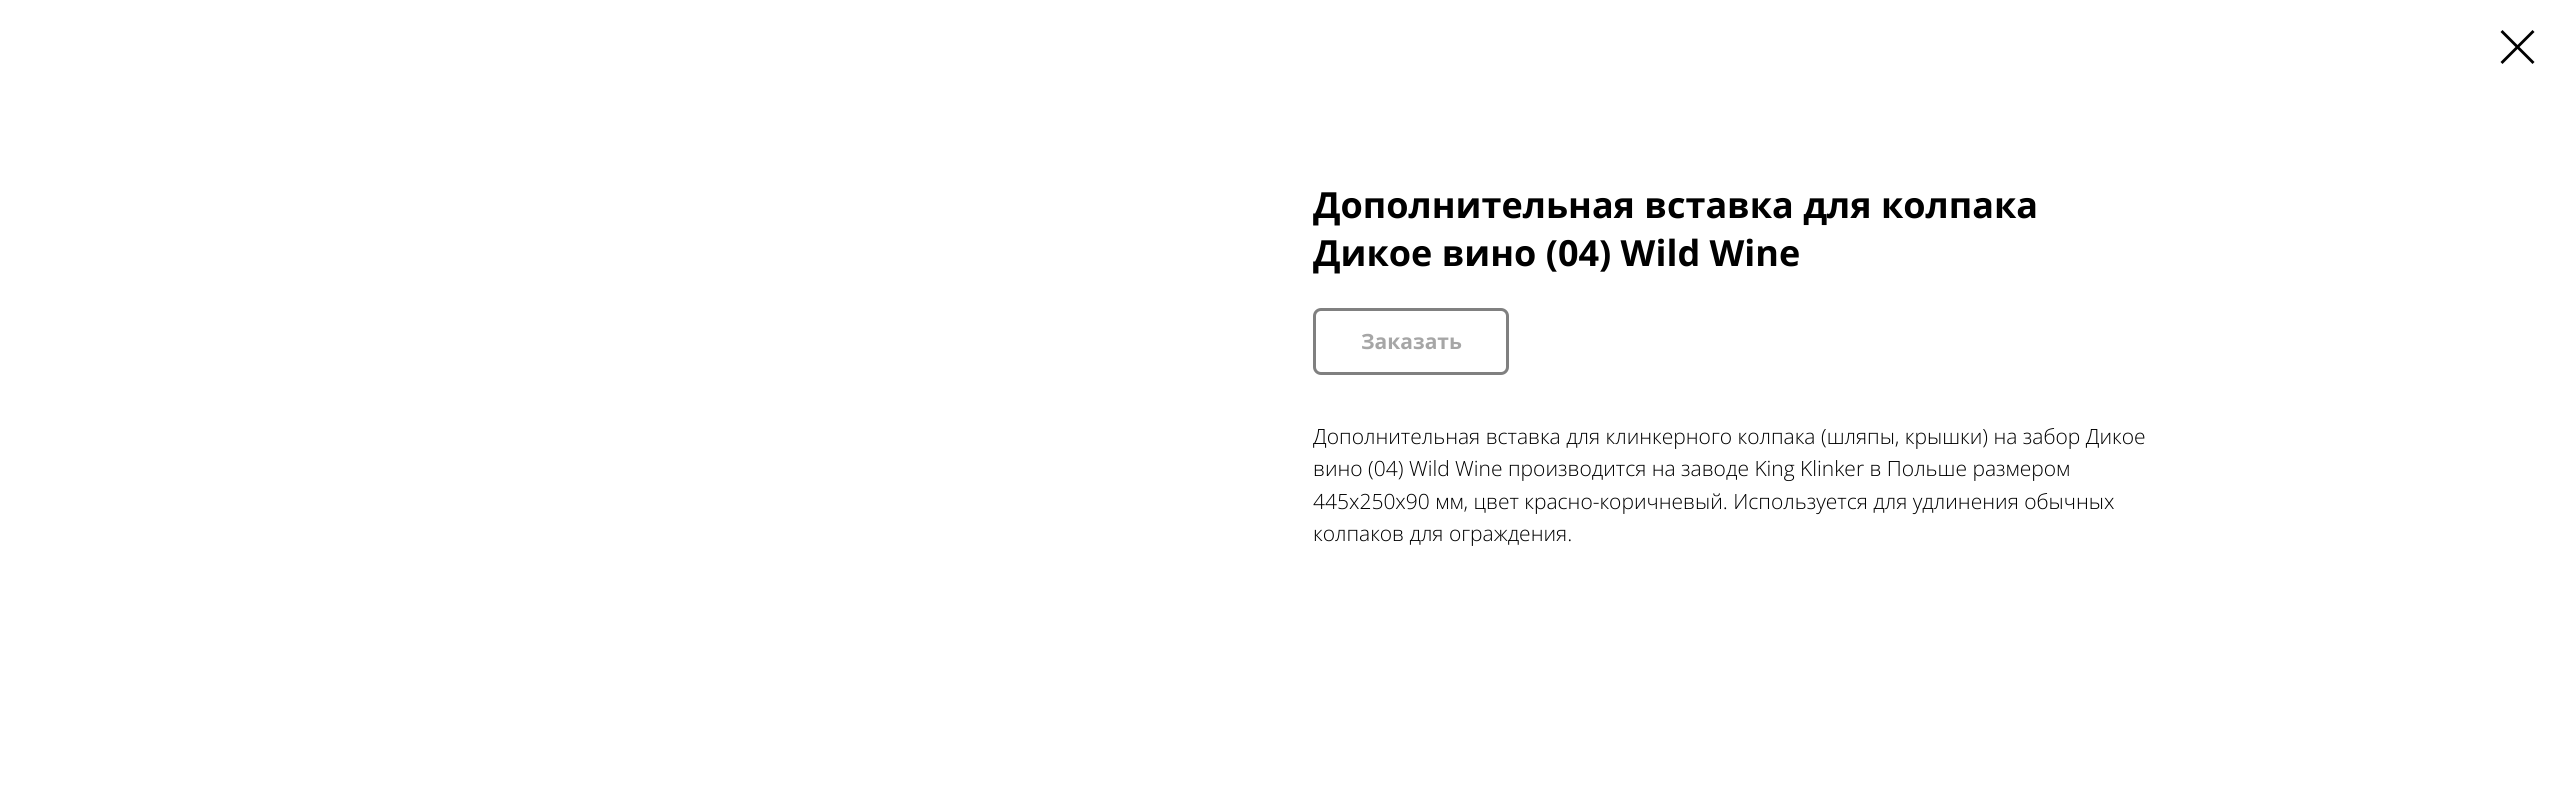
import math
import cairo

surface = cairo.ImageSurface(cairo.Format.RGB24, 2565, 800)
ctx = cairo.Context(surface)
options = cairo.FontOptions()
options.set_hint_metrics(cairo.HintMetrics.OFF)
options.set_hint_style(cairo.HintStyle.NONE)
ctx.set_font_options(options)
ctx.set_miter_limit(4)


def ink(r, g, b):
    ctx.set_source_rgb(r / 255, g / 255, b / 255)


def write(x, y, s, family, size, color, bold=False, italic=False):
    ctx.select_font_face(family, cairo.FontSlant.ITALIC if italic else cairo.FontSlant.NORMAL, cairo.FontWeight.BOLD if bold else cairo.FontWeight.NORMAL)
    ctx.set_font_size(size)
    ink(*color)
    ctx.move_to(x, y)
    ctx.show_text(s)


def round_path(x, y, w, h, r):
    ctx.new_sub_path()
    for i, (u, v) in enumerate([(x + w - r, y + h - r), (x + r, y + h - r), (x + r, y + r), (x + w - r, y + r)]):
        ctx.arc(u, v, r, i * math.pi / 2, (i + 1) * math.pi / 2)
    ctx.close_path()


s1 = dict(family="Open Sans", size=36, color=(0, 0, 0), bold=True)
s2 = dict(family="Open Sans", size=21, color=(166, 166, 166), bold=True)
s3 = dict(family="Open Sans Light", size=21, color=(0, 0, 0))

ink(255, 255, 255)
ctx.paint()
ink(0, 0, 0)
ctx.set_fill_rule(cairo.FillRule.EVEN_ODD)
ctx.new_path()
ctx.move_to(2500.5, 32)
ctx.line_to(2502.5, 30)
ctx.line_to(2534.5, 62)
ctx.line_to(2532.5, 64)
ctx.close_path()
ctx.fill()
ctx.new_path()
ctx.move_to(2532.5, 30)
ctx.line_to(2534.5, 32)
ctx.line_to(2502.5, 64)
ctx.line_to(2500.5, 62)
ctx.close_path()
ctx.fill()
write(1313, 218, "Дополнительная вставка для колпака", **s1)
write(1313, 266, "Дикое вино (04) Wild Wine", **s1)
round_path(1314.5, 309.5, 193, 64, 6.5)
ink(128, 128, 128)
ctx.set_line_width(3)
ctx.stroke()
write(1361, 349, "Заказать", **s2)
write(1313, 444, "Дополнительная вставка для клинкерного колпака (шляпы, крышки) на забор Дикое", **s3)
write(1313, 476, "вино (04) Wild Wine производится на заводе King Klinker в Польше размером", **s3)
write(1313, 509, "445x250x90 мм, цвет красно-коричневый. Используется для удлинения обычных", **s3)
write(1313, 541, "колпаков для ограждения.", **s3)
surface.write_to_png("screenshot.png")
